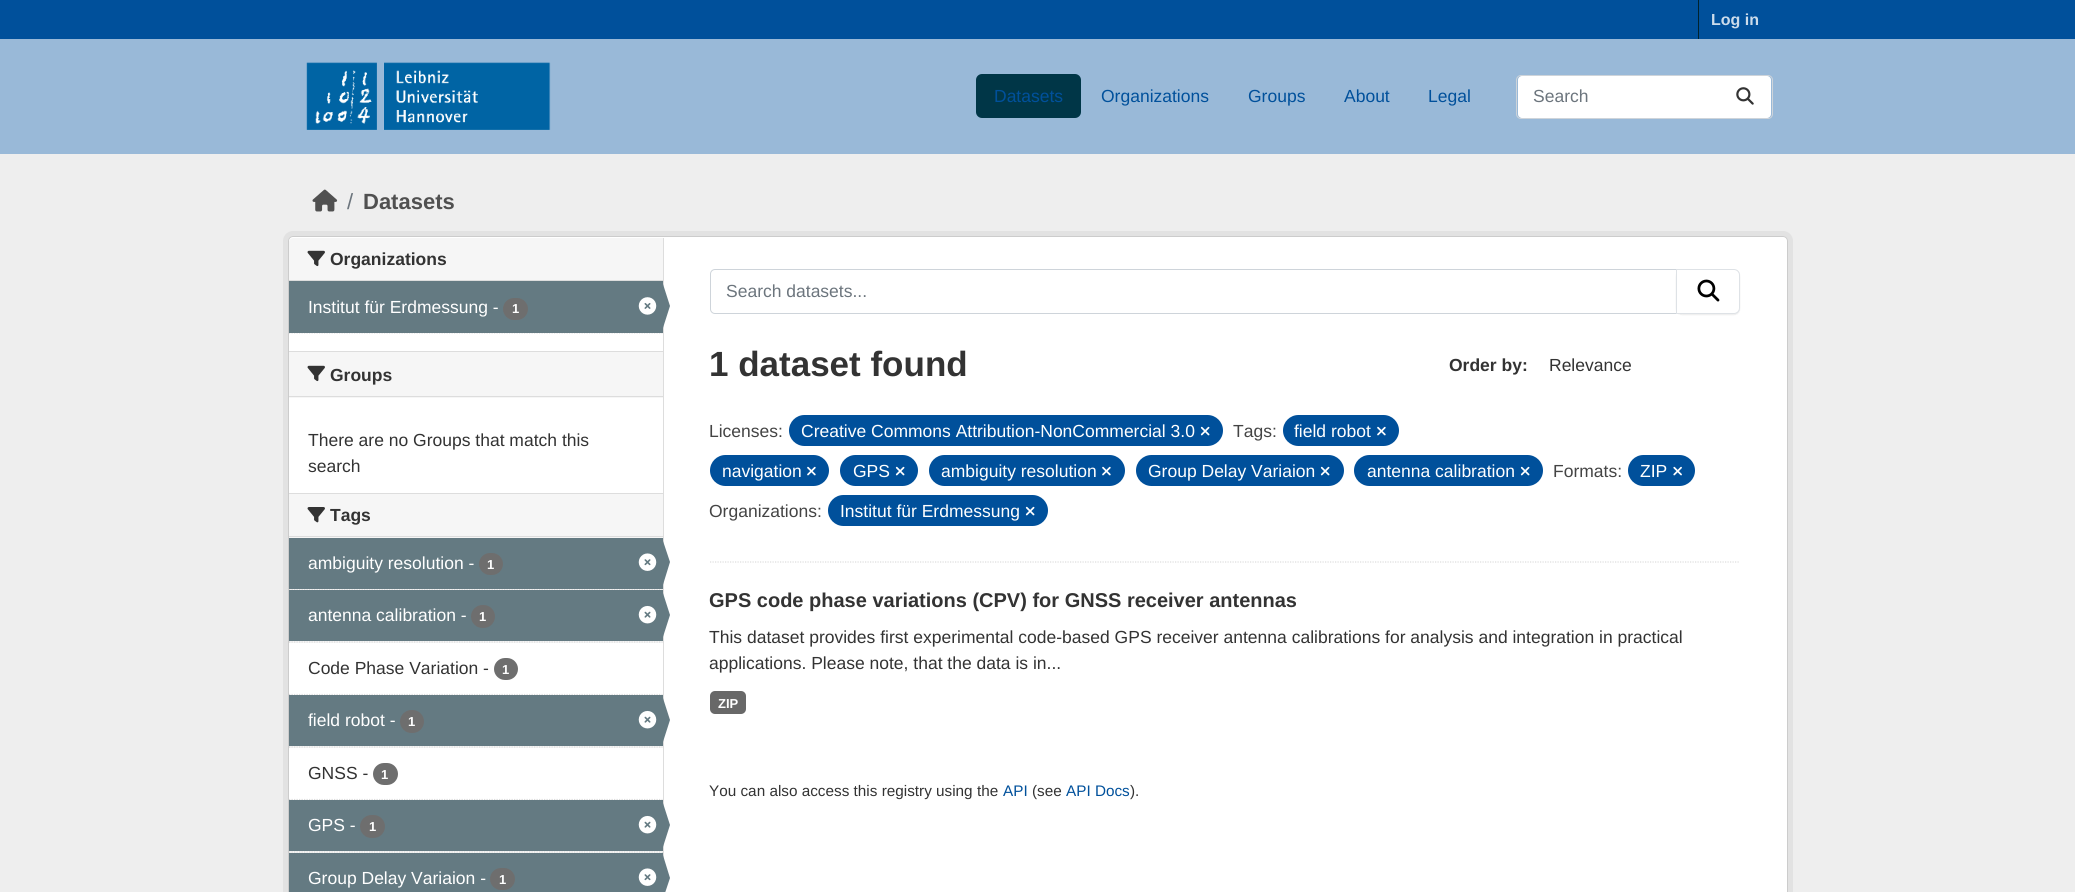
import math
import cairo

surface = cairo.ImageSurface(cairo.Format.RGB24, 2075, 892)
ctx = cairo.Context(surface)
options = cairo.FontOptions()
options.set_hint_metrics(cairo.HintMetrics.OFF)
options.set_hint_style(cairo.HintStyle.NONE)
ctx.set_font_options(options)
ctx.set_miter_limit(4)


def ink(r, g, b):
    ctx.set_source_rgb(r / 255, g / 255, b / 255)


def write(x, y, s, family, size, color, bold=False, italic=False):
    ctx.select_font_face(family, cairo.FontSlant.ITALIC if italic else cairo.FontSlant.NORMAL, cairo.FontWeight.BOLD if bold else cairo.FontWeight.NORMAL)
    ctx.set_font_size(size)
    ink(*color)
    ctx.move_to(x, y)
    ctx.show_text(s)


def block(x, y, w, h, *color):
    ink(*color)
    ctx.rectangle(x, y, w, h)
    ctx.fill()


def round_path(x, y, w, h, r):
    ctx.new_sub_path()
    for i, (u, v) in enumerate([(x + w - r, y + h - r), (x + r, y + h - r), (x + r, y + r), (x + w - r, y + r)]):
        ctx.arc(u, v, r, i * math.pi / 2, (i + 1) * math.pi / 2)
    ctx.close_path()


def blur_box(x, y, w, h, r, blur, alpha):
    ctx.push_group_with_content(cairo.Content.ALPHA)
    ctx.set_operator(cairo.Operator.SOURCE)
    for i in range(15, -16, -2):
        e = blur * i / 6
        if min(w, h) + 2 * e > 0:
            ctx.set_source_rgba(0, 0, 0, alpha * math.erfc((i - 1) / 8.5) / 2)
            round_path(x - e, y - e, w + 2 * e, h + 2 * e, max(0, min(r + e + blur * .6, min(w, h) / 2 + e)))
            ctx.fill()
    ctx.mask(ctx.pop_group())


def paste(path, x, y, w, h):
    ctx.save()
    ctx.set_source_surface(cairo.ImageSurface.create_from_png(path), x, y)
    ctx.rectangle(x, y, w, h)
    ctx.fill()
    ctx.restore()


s1 = dict(family="Liberation Sans", size=16, color=(204, 220, 235), bold=True)
s2 = dict(family="Liberation Sans", size=17.5, color=(0, 80, 155))
s3 = dict(family="Liberation Sans", size=17.5, color=(108, 117, 125))
s4 = dict(family="Liberation Sans", size=22, color=(108, 117, 125))
s5 = dict(family="Liberation Sans", size=22, color=(80, 80, 80), bold=True)
s6 = dict(family="Liberation Sans", size=17.5, color=(51, 51, 51), bold=True)
s7 = dict(family="Liberation Sans", size=17.5, color=(255, 255, 255))
s8 = dict(family="Liberation Sans", size=13, color=(255, 255, 255), bold=True)
s9 = dict(family="Liberation Sans", size=17.5, color=(51, 51, 51))
s10 = dict(family="Liberation Sans", size=35, color=(51, 51, 51), bold=True)
s11 = dict(family="Liberation Sans", size=17.5, color=(68, 68, 68))
s12 = dict(family="Liberation Sans", size=20, color=(51, 51, 51), bold=True)
s13 = dict(family="Liberation Sans", size=15.3, color=(51, 51, 51))
s14 = dict(family="Liberation Sans", size=15.3, color=(0, 80, 155))

ink(0, 80, 155)
ctx.paint()
block(1698, 0, 1, 39, 0, 35, 46)
write(1711, 25, "Log in", **s1)
block(0, 39, 2075, 115, 153, 185, 216)
paste("pic1.png", 306, 62, 245, 68)
ink(0, 54, 71)
round_path(976, 74, 105, 44, 6)
ctx.fill()
write(994, 102, "Datasets", **s2)
write(1101, 102, "Organizations", **s2)
write(1248, 102, "Groups", **s2)
write(1344, 102, "About", **s2)
write(1428, 102, "Legal", **s2)
ink(255, 255, 255)
round_path(1518, 76, 253, 42, 4)
ctx.fill()
round_path(1516.5, 75.5, 256, 43, 4.5)
ink(206, 212, 218)
ctx.set_line_width(1)
ctx.stroke()
write(1533, 102, "Search", **s3)
paste("pic2.png", 1736, 87, 18, 18)
block(0, 154, 2075, 738, 238, 238, 238)
paste("pic3.png", 312, 189, 26, 23)
write(347, 209, "/", **s4)
write(363, 209, "Datasets", **s5)
round_path(285.5, 233.5, 1505, 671, 7.5)
ink(226, 226, 226)
ctx.set_line_width(5)
ctx.stroke()
ink(255, 255, 255)
round_path(288.5, 236.5, 1499, 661, 4.5)
ctx.fill_preserve()
ink(204, 204, 204)
ctx.set_line_width(1)
ctx.stroke()
ink(246, 246, 246)
ctx.new_path()
ctx.move_to(293, 238)
ctx.line_to(663, 238)
ctx.line_to(663, 281)
ctx.line_to(289, 281)
ctx.line_to(289, 242)
ctx.curve_to(289, 240, 291, 238, 293, 238)
ctx.close_path()
ctx.fill()
block(289, 280, 374, 1, 221, 221, 221)
paste("pic4.png", 307, 250, 18, 17)
write(330, 265, "Organizations", **s6)
ctx.new_path()
ctx.move_to(289, 333)
ctx.line_to(662.5, 333)
ink(221, 221, 221)
ctx.set_line_width(1.2)
ctx.set_dash([1.25, 1.25])
ctx.stroke()
block(289, 281, 374, 52, 100, 122, 130)
write(308, 313, "Institut für Erdmessung -", **s7)
ink(110, 110, 110)
round_path(503, 298, 25, 22, 11)
ctx.fill()
write(512, 313, "1", **s8)
paste("pic5.png", 638, 297, 19, 18)
block(663, 238, 1, 621, 221, 221, 221)
ink(100, 122, 130)
ctx.new_path()
ctx.move_to(662, 331)
ctx.line_to(662, 281)
ctx.line_to(670, 306)
ctx.close_path()
ctx.fill()
block(289, 352, 374, 46, 246, 246, 246)
block(289, 351, 374, 1, 221, 221, 221)
block(289, 396, 374, 1, 221, 221, 221)
paste("pic4.png", 307, 365, 18, 17)
write(330, 381, "Groups", **s6)
write(308, 446, "There are no Groups that match this", **s9)
write(308, 472, "search", **s9)
block(289, 494, 374, 44, 246, 246, 246)
block(289, 493, 374, 1, 221, 221, 221)
block(289, 536, 374, 1, 221, 221, 221)
paste("pic6.png", 307, 507, 18, 16)
write(330, 521, "Tags", **s6)
block(290, 589, 373, 1, 246, 246, 246)
ctx.new_path()
ctx.move_to(289, 589.5)
ctx.line_to(662.5, 589.5)
ink(221, 221, 221)
ctx.stroke()
block(289, 538, 374, 51, 100, 122, 130)
write(308, 569, "ambiguity resolution -", **s7)
ink(110, 110, 110)
round_path(479, 553, 24, 22, 11)
ctx.fill()
write(487, 569, "1", **s8)
paste("pic7.png", 638, 553, 19, 18)
ink(100, 122, 130)
ctx.new_path()
ctx.move_to(662, 588)
ctx.line_to(662, 538)
ctx.line_to(670, 562)
ctx.close_path()
ctx.fill()
block(289, 641, 374, 2, 246, 246, 246)
ctx.new_path()
ctx.move_to(289, 642)
ctx.line_to(662.5, 642)
ink(221, 221, 221)
ctx.stroke()
block(289, 590, 374, 51, 100, 122, 130)
write(308, 621, "antenna calibration -", **s7)
ink(110, 110, 110)
round_path(471, 605, 24, 23, 11.5)
ctx.fill()
write(479, 621, "1", **s8)
paste("pic8.png", 638, 605, 19, 19)
ink(100, 122, 130)
ctx.new_path()
ctx.move_to(662, 640)
ctx.line_to(662, 590)
ctx.line_to(670, 615)
ctx.close_path()
ctx.fill()
ctx.new_path()
ctx.move_to(289, 694.5)
ctx.line_to(662.5, 694.5)
ink(221, 221, 221)
ctx.stroke()
write(308, 674, "Code Phase Variation -", **s9)
ink(110, 110, 110)
round_path(494, 658, 24, 22, 11)
ctx.fill()
write(502, 674, "1", **s8)
block(289, 746, 374, 2, 246, 246, 246)
ctx.new_path()
ctx.move_to(289, 747)
ctx.line_to(662.5, 747)
ink(221, 221, 221)
ctx.stroke()
block(289, 695, 374, 51, 100, 122, 130)
write(308, 726, "field robot -", **s7)
ink(110, 110, 110)
round_path(400, 710, 24, 23, 11.5)
ctx.fill()
write(408, 726, "1", **s8)
paste("pic8.png", 638, 710, 19, 19)
ink(100, 122, 130)
ctx.new_path()
ctx.move_to(662, 745)
ctx.line_to(662, 695)
ctx.line_to(670, 720)
ctx.close_path()
ctx.fill()
ctx.new_path()
ctx.move_to(289, 799.5)
ctx.line_to(662.5, 799.5)
ink(221, 221, 221)
ctx.stroke()
write(308, 779, "GNSS -", **s9)
ink(110, 110, 110)
round_path(373, 763, 25, 22, 11)
ctx.fill()
write(381, 779, "1", **s8)
block(289, 851, 374, 2, 246, 246, 246)
ctx.new_path()
ctx.move_to(289, 852)
ctx.line_to(662.5, 852)
ink(221, 221, 221)
ctx.stroke()
block(289, 800, 374, 51, 100, 122, 130)
write(308, 831, "GPS -", **s7)
ink(110, 110, 110)
round_path(360, 815, 25, 23, 11.5)
ctx.fill()
write(369, 831, "1", **s8)
paste("pic8.png", 638, 815, 19, 19)
ink(100, 122, 130)
ctx.new_path()
ctx.move_to(662, 850)
ctx.line_to(662, 800)
ctx.line_to(670, 825)
ctx.close_path()
ctx.fill()
block(289, 853, 374, 39, 100, 122, 130)
write(308, 884, "Group Delay Variaion -", **s7)
ink(110, 110, 110)
round_path(490, 868, 25, 22, 11)
ctx.fill()
write(499, 884, "1", **s8)
paste("pic7.png", 638, 868, 19, 18)
ink(100, 122, 130)
ctx.new_path()
ctx.move_to(662, 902)
ctx.line_to(662, 852)
ctx.line_to(670, 878)
ctx.close_path()
ctx.fill()
ctx.new_path()
ctx.move_to(710, 562)
ctx.line_to(1740, 562)
ink(221, 221, 221)
ctx.stroke()
ctx.new_path()
ctx.move_to(715, 269.5)
ctx.line_to(1677.5, 269.5)
ctx.line_to(1677.5, 313.5)
ctx.line_to(715, 313.5)
ctx.curve_to(712.5, 313.5, 710.5, 311.5, 710.5, 309)
ctx.line_to(710.5, 274)
ctx.curve_to(710.5, 271.5, 712.5, 269.5, 715, 269.5)
ctx.close_path()
ink(206, 212, 218)
ctx.set_line_width(1)
ctx.set_dash([])
ctx.stroke()
write(726, 297, "Search datasets...", **s3)
ink(0, 0, 0)
blur_box(1676, 270, 64, 45, 6, 0.5, 0.07)
ink(255, 255, 255)
ctx.new_path()
ctx.move_to(1676.5, 269.5)
ctx.line_to(1734, 269.5)
ctx.curve_to(1737, 269.5, 1739.5, 272, 1739.5, 275)
ctx.line_to(1739.5, 308)
ctx.curve_to(1739.5, 311, 1737, 313.5, 1734, 313.5)
ctx.line_to(1676.5, 313.5)
ctx.close_path()
ctx.fill_preserve()
ink(222, 226, 230)
ctx.stroke()
paste("pic9.png", 1697, 279, 23, 23)
write(709, 376, "1 dataset found", **s10)
write(1449, 371, "Order by:", **s6)
write(1549, 371, "Relevance", **s9)
write(709, 437, "Licenses:", **s11)
ink(0, 80, 155)
round_path(789, 415, 434, 31, 15.5)
ctx.fill()
write(801, 437, "Creative Commons Attribution-NonCommercial 3.0", **s7)
paste("pic10.png", 1200, 426, 10, 10)
write(1233, 437, "Tags:", **s11)
ink(0, 80, 155)
round_path(1283, 415, 116, 31, 15.5)
ctx.fill()
write(1294, 437, "field robot", **s7)
paste("pic11.png", 1377, 426, 9, 10)
ink(0, 80, 155)
round_path(710, 455, 119, 31, 15.5)
ctx.fill()
write(722, 477, "navigation", **s7)
paste("pic11.png", 807, 466, 9, 10)
ink(0, 80, 155)
round_path(840, 455, 78, 31, 15.5)
ctx.fill()
write(853, 477, "GPS", **s7)
paste("pic10.png", 895, 466, 10, 10)
ink(0, 80, 155)
round_path(929, 455, 196, 31, 15.5)
ctx.fill()
write(941, 477, "ambiguity resolution", **s7)
paste("pic11.png", 1102, 466, 9, 10)
ink(0, 80, 155)
round_path(1136, 455, 208, 31, 15.5)
ctx.fill()
write(1148, 477, "Group Delay Variaion", **s7)
paste("pic10.png", 1320, 466, 10, 10)
ink(0, 80, 155)
round_path(1354, 455, 189, 31, 15.5)
ctx.fill()
write(1367, 477, "antenna calibration", **s7)
paste("pic10.png", 1520, 466, 10, 10)
write(1553, 477, "Formats:", **s11)
ink(0, 80, 155)
round_path(1628, 455, 67, 31, 15.5)
ctx.fill()
write(1640, 477, "ZIP", **s7)
paste("pic12.png", 1673, 466, 9, 10)
write(709, 517, "Organizations:", **s11)
ink(0, 80, 155)
round_path(828, 495, 220, 31, 15.5)
ctx.fill()
write(840, 517, "Institut für Erdmessung", **s7)
paste("pic10.png", 1025, 506, 10, 10)
write(709, 607, "GPS code phase variations (CPV) for GNSS receiver antennas", **s12)
write(709, 643, "This dataset provides first experimental code-based GPS receiver antenna calibrations for analysis and integration in practical", **s9)
write(709, 669, "applications. Please note, that the data is in...", **s9)
ink(104, 104, 104)
round_path(710, 691, 36, 23, 5)
ctx.fill()
write(718, 708, "ZIP", **s8)
write(709, 796, "You can also access this registry using the", **s13)
write(1003, 796, "API", **s14)
write(1032, 796, "(see", **s13)
write(1066, 796, "API Docs", **s14)
write(1130, 796, ").", **s13)
surface.write_to_png("screenshot.png")
